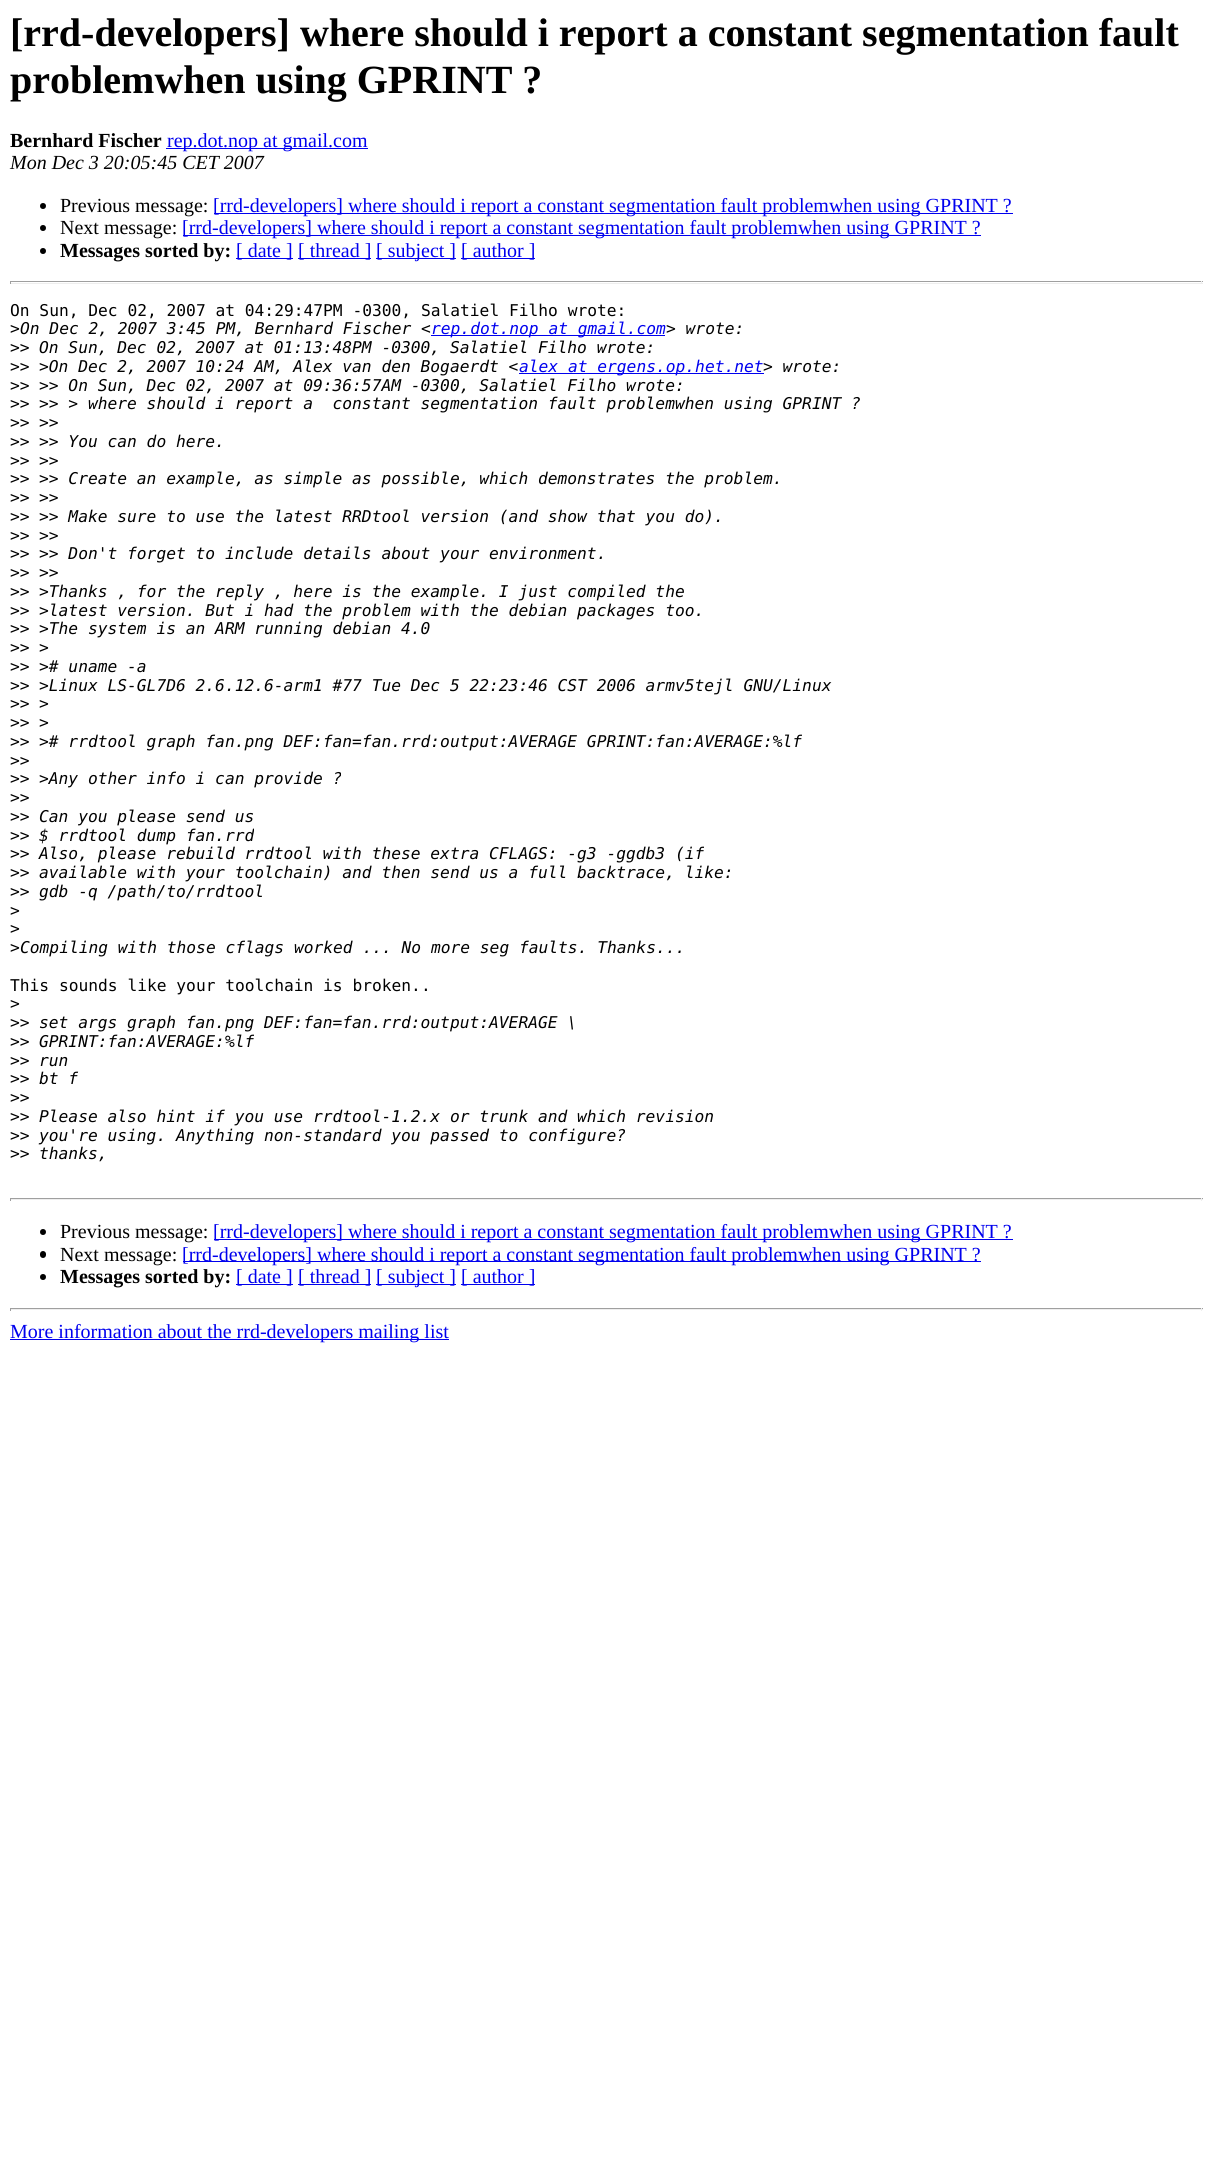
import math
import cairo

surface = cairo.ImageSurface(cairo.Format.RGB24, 1212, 2176)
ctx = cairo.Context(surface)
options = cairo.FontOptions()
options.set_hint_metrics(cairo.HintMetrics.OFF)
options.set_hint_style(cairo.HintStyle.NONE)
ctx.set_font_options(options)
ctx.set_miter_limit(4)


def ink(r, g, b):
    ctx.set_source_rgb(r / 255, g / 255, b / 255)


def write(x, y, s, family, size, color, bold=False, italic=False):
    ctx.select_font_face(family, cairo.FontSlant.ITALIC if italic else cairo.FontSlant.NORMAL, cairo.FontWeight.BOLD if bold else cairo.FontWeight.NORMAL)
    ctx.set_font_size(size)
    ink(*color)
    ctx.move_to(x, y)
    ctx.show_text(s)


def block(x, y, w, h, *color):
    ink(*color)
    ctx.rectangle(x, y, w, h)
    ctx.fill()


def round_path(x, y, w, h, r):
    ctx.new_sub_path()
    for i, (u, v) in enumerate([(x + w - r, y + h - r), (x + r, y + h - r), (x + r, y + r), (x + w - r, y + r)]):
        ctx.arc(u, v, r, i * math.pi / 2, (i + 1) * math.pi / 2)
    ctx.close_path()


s1 = dict(family="Liberation Serif", size=40, color=(0, 0, 0), bold=True)
s2 = dict(family="Liberation Serif", size=20, color=(0, 0, 0), bold=True)
s3 = dict(family="Liberation Serif", size=20, color=(0, 0, 238))
s4 = dict(family="Liberation Serif", size=20, color=(0, 0, 0), italic=True)
s5 = dict(family="Liberation Serif", size=20, color=(0, 0, 0))
s6 = dict(family="DejaVu Sans Mono", size=16.25, color=(0, 0, 0))
s7 = dict(family="DejaVu Sans Mono", size=16.25, color=(0, 0, 0), italic=True)
s8 = dict(family="DejaVu Sans Mono", size=16.25, color=(0, 0, 238), italic=True)

ink(255, 255, 255)
ctx.paint()
write(10, 46, "[rrd-developers] where should i report a constant segmentation fault", **s1)
write(10, 93, "problemwhen using GPRINT ?", **s1)
write(10, 147, "Bernhard Fischer", **s2)
block(166, 148, 202, 1, 0, 0, 238)
write(167, 147, "rep.dot.nop at gmail.com", **s3)
write(10, 169, "Mon Dec 3 20:05:45 CET 2007", **s4)
ctx.new_path()
ctx.arc(43, 206, 3, 0, 2 * math.pi)
ctx.fill()
write(60, 212, "Previous message:", **s5)
block(214, 213, 799, 1, 0, 0, 238)
write(213, 212, "[rrd-developers] where should i report a constant segmentation fault problemwhen using GPRINT ?", **s3)
ink(0, 0, 0)
ctx.new_path()
ctx.arc(43, 228, 3, 0, 2 * math.pi)
ctx.fill()
write(60, 234, "Next message:", **s5)
block(183, 235, 798, 1, 0, 0, 238)
write(182, 234, "[rrd-developers] where should i report a constant segmentation fault problemwhen using GPRINT ?", **s3)
ink(0, 0, 0)
ctx.new_path()
ctx.arc(43, 251, 3, 0, 2 * math.pi)
ctx.fill()
write(60, 257, "Messages sorted by:", **s2)
block(236, 258, 57, 1, 0, 0, 238)
write(236, 257, "[ date ]", **s3)
block(298, 258, 73, 1, 0, 0, 238)
write(298, 257, "[ thread ]", **s3)
block(376, 258, 80, 1, 0, 0, 238)
write(376, 257, "[ subject ]", **s3)
block(461, 258, 74, 1, 0, 0, 238)
write(461, 257, "[ author ]", **s3)
block(10, 281, 1193, 1, 159, 159, 159)
block(1201, 281, 1, 3, 238, 238, 238)
block(10, 283, 1193, 1, 238, 238, 238)
block(10, 281, 1, 3, 159, 159, 159)
write(10, 316, "On Sun, Dec 02, 2007 at 04:29:47PM -0300, Salatiel Filho wrote:", **s6)
write(10, 334, ">", **s6)
write(20, 334, "On Dec 2, 2007 3:45 PM, Bernhard Fischer <", **s7)
block(431, 335, 234, 1, 0, 0, 238)
write(431, 334, "rep.dot.nop at gmail.com", **s8)
write(666, 334, "> wrote:", **s7)
write(10, 353, ">>", **s6)
write(39, 353, "On Sun, Dec 02, 2007 at 01:13:48PM -0300, Salatiel Filho wrote:", **s7)
write(10, 372, ">>", **s6)
write(39, 372, ">On Dec 2, 2007 10:24 AM, Alex van den Bogaerdt <", **s7)
block(519, 373, 245, 1, 0, 0, 238)
write(519, 372, "alex at ergens.op.het.net", **s8)
write(763, 372, "> wrote:", **s7)
write(10, 391, ">>", **s6)
write(39, 391, ">> On Sun, Dec 02, 2007 at 09:36:57AM -0300, Salatiel Filho wrote:", **s7)
write(10, 409, ">>", **s6)
write(39, 409, ">> > where should i report a  constant segmentation fault problemwhen using GPRINT ?", **s7)
write(10, 428, ">>", **s6)
write(39, 428, ">>", **s7)
write(10, 447, ">>", **s6)
write(39, 447, ">> You can do here.", **s7)
write(10, 466, ">>", **s6)
write(39, 466, ">>", **s7)
write(10, 484, ">>", **s6)
write(39, 484, ">> Create an example, as simple as possible, which demonstrates the problem.", **s7)
write(10, 503, ">>", **s6)
write(39, 503, ">>", **s7)
write(10, 522, ">>", **s6)
write(39, 522, ">> Make sure to use the latest RRDtool version (and show that you do).", **s7)
write(10, 541, ">>", **s6)
write(39, 541, ">>", **s7)
write(10, 559, ">>", **s6)
write(39, 559, ">> Don't forget to include details about your environment.", **s7)
write(10, 578, ">>", **s6)
write(39, 578, ">>", **s7)
write(10, 597, ">>", **s6)
write(39, 597, ">Thanks , for the reply , here is the example. I just compiled the", **s7)
write(10, 616, ">>", **s6)
write(39, 616, ">latest version. But i had the problem with the debian packages too.", **s7)
write(10, 634, ">>", **s6)
write(39, 634, ">The system is an ARM running debian 4.0", **s7)
write(10, 653, ">>", **s6)
write(39, 653, ">", **s7)
write(10, 672, ">>", **s6)
write(39, 672, "># uname -a", **s7)
write(10, 691, ">>", **s6)
write(39, 691, ">Linux LS-GL7D6 2.6.12.6-arm1 #77 Tue Dec 5 22:23:46 CST 2006 armv5tejl GNU/Linux", **s7)
write(10, 709, ">>", **s6)
write(39, 709, ">", **s7)
write(10, 728, ">>", **s6)
write(39, 728, ">", **s7)
write(10, 747, ">>", **s6)
write(39, 747, "># rrdtool graph fan.png DEF:fan=fan.rrd:output:AVERAGE GPRINT:fan:AVERAGE:%lf", **s7)
write(10, 766, ">>", **s6)
write(10, 784, ">>", **s6)
write(39, 784, ">Any other info i can provide ?", **s7)
write(10, 803, ">>", **s6)
write(10, 822, ">>", **s6)
write(39, 822, "Can you please send us", **s7)
write(10, 841, ">>", **s6)
write(39, 841, "$ rrdtool dump fan.rrd", **s7)
write(10, 859, ">>", **s6)
write(39, 859, "Also, please rebuild rrdtool with these extra CFLAGS: -g3 -ggdb3 (if", **s7)
write(10, 878, ">>", **s6)
write(39, 878, "available with your toolchain) and then send us a full backtrace, like:", **s7)
write(10, 897, ">>", **s6)
write(39, 897, "gdb -q /path/to/rrdtool", **s7)
write(10, 916, ">", **s6)
write(10, 934, ">", **s6)
write(10, 953, ">", **s6)
write(20, 953, "Compiling with those cflags worked ... No more seg faults. Thanks...", **s7)
write(10, 991, "This sounds like your toolchain is broken..", **s6)
write(10, 1009, ">", **s6)
write(10, 1028, ">>", **s6)
write(39, 1028, "set args graph fan.png DEF:fan=fan.rrd:output:AVERAGE \\", **s7)
write(10, 1047, ">>", **s6)
write(39, 1047, "GPRINT:fan:AVERAGE:%lf", **s7)
write(10, 1066, ">>", **s6)
write(39, 1066, "run", **s7)
write(10, 1084, ">>", **s6)
write(39, 1084, "bt f", **s7)
write(10, 1103, ">>", **s6)
write(10, 1122, ">>", **s6)
write(39, 1122, "Please also hint if you use rrdtool-1.2.x or trunk and which revision", **s7)
write(10, 1141, ">>", **s6)
write(39, 1141, "you're using. Anything non-standard you passed to configure?", **s7)
write(10, 1159, ">>", **s6)
write(39, 1159, "thanks,", **s7)
block(10, 1198, 1193, 1, 159, 159, 159)
block(1201, 1198, 1, 3, 238, 238, 238)
block(10, 1199, 1193, 1, 238, 238, 238)
block(10, 1198, 1, 3, 159, 159, 159)
ink(0, 0, 0)
ctx.new_path()
ctx.arc(43, 1232, 3, 0, 2 * math.pi)
ctx.fill()
write(60, 1238, "Previous message:", **s5)
block(214, 1239, 799, 1, 0, 0, 238)
write(213, 1238, "[rrd-developers] where should i report a constant segmentation fault problemwhen using GPRINT ?", **s3)
ink(0, 0, 0)
round_path(40, 1251, 6, 7, 3)
ctx.fill()
write(60, 1261, "Next message:", **s5)
block(183, 1261, 798, 1, 0, 0, 238)
write(182, 1261, "[rrd-developers] where should i report a constant segmentation fault problemwhen using GPRINT ?", **s3)
ink(0, 0, 0)
ctx.new_path()
ctx.arc(43, 1277, 3, 0, 2 * math.pi)
ctx.fill()
write(60, 1283, "Messages sorted by:", **s2)
block(236, 1284, 57, 1, 0, 0, 238)
write(236, 1283, "[ date ]", **s3)
block(298, 1284, 73, 1, 0, 0, 238)
write(298, 1283, "[ thread ]", **s3)
block(376, 1284, 80, 1, 0, 0, 238)
write(376, 1283, "[ subject ]", **s3)
block(461, 1284, 74, 1, 0, 0, 238)
write(461, 1283, "[ author ]", **s3)
block(10, 1308, 1193, 1, 159, 159, 159)
block(1201, 1308, 1, 3, 238, 238, 238)
block(10, 1309, 1193, 1, 238, 238, 238)
block(10, 1308, 1, 3, 159, 159, 159)
block(10, 1339, 439, 1, 0, 0, 238)
write(10, 1338, "More information about the rrd-developers mailing list", **s3)
surface.write_to_png("screenshot.png")
